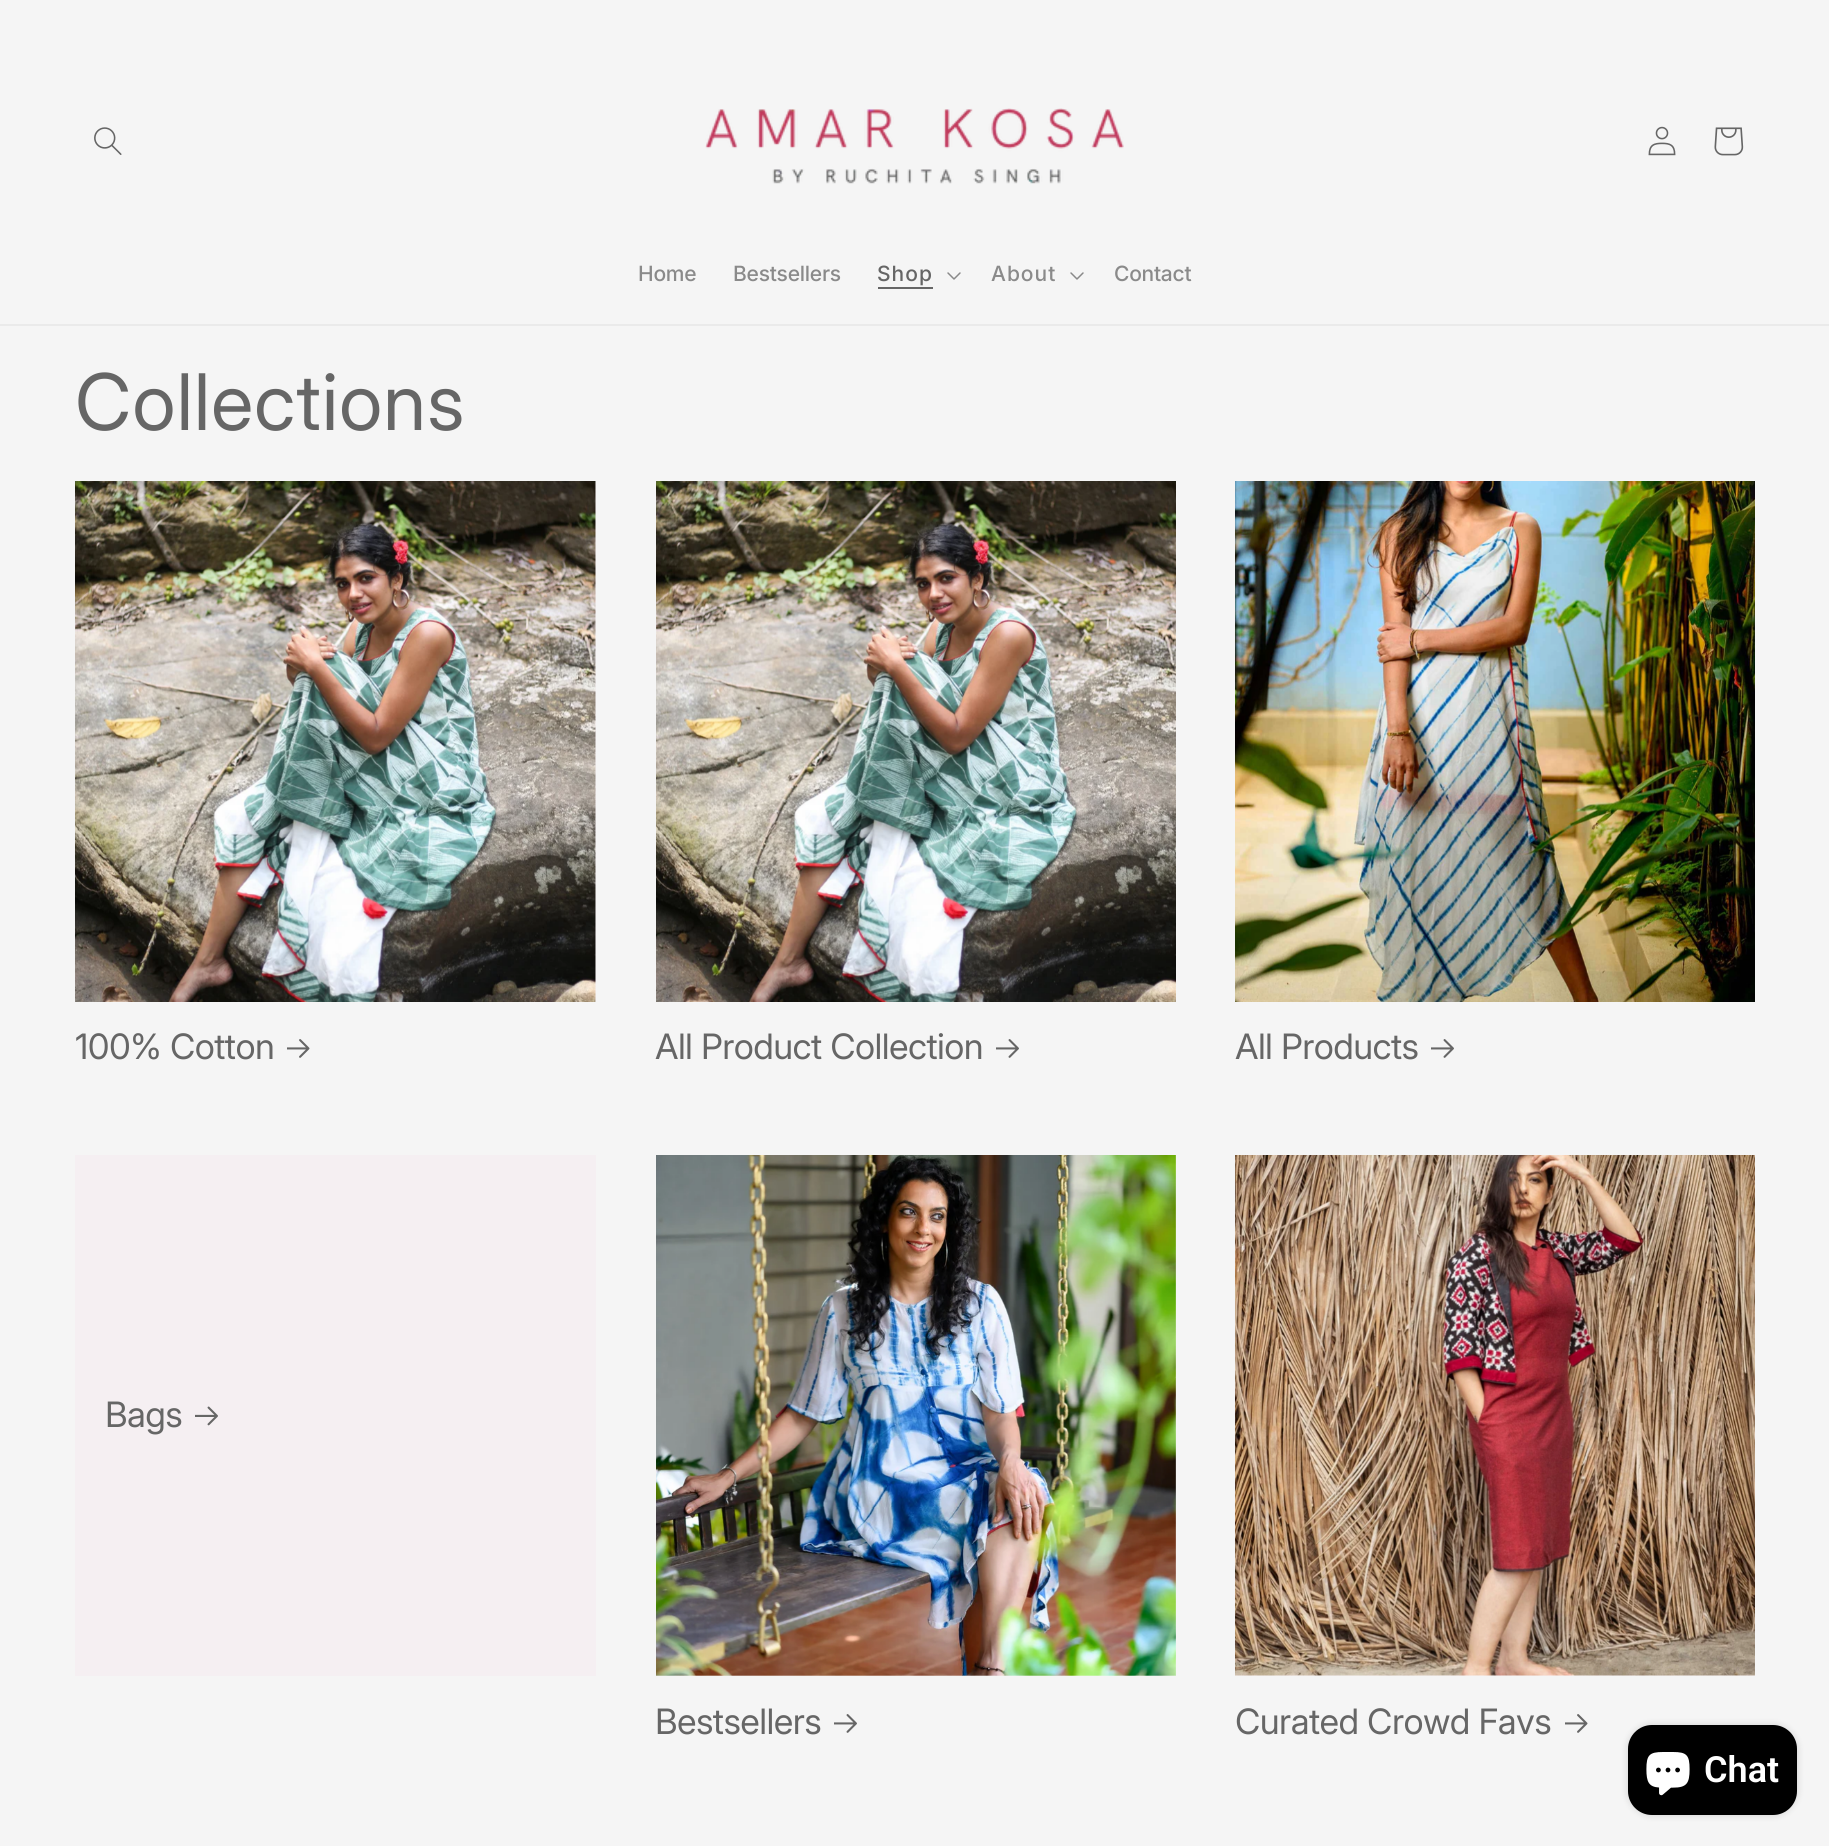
import math
import cairo

surface = cairo.ImageSurface(cairo.Format.RGB24, 1829, 1846)
ctx = cairo.Context(surface)
options = cairo.FontOptions()
options.set_hint_metrics(cairo.HintMetrics.OFF)
options.set_hint_style(cairo.HintStyle.NONE)
ctx.set_font_options(options)
ctx.set_miter_limit(4)


def ink(r, g, b):
    ctx.set_source_rgb(r / 255, g / 255, b / 255)


def write(x, y, s, family, size, color, bold=False, italic=False):
    ctx.select_font_face(family, cairo.FontSlant.ITALIC if italic else cairo.FontSlant.NORMAL, cairo.FontWeight.BOLD if bold else cairo.FontWeight.NORMAL)
    ctx.set_font_size(size)
    ink(*color)
    ctx.move_to(x, y)
    ctx.show_text(s)


def write_spaced(x, y, s, letter, word):
    ctx.move_to(x, y)
    for ch in s:
        ctx.show_text(ch)
        ctx.rel_move_to(letter + word * (ch == ' '), 0)


def block(x, y, w, h, *color):
    ink(*color)
    ctx.rectangle(x, y, w, h)
    ctx.fill()


def round_path(x, y, w, h, r):
    ctx.new_sub_path()
    for i, (u, v) in enumerate([(x + w - r, y + h - r), (x + r, y + h - r), (x + r, y + r), (x + w - r, y + r)]):
        ctx.arc(u, v, r, i * math.pi / 2, (i + 1) * math.pi / 2)
    ctx.close_path()


def blur_box(x, y, w, h, r, blur, alpha):
    ctx.push_group_with_content(cairo.Content.ALPHA)
    ctx.set_operator(cairo.Operator.SOURCE)
    for i in range(15, -16, -2):
        e = blur * i / 6
        if min(w, h) + 2 * e > 0:
            ctx.set_source_rgba(0, 0, 0, alpha * math.erfc((i - 1) / 8.5) / 2)
            round_path(x - e, y - e, w + 2 * e, h + 2 * e, max(0, min(r + e + blur * .6, min(w, h) / 2 + e)))
            ctx.fill()
    ctx.mask(ctx.pop_group())


def paste(path, x, y, w, h):
    ctx.save()
    ctx.set_source_surface(cairo.ImageSurface.create_from_png(path), x, y)
    ctx.rectangle(x, y, w, h)
    ctx.fill()
    ctx.restore()


s1 = dict(family="Roboto SemiBold", size=36, color=(255, 255, 255))

ink(245, 245, 245)
ctx.paint()
block(0, 324, 1829, 2, 234, 234, 234)
paste("pic1.png", 94, 127, 28, 28)
paste("pic2.png", 705, 108, 419, 76)
paste("pic3.png", 1648, 126, 28, 30)
paste("pic4.png", 1714, 127, 30, 29)
ctx.select_font_face("Inter Medium")
ctx.set_font_size(21)
ink(138, 138, 138)
write_spaced(638, 281, "Home", -0.25, 0)
write_spaced(733, 281, "Bestsellers", -0.25, 0)
ink(102, 102, 102)
write_spaced(877, 281, "Shop", 1, 0)
block(878, 287, 55, 2, 102, 102, 102)
paste("pic5.png", 947, 272, 14, 8)
ink(138, 138, 138)
write_spaced(991, 281, "About", 1, 0)
paste("pic5.png", 1070, 272, 14, 8)
write_spaced(1114, 281, "Contact", -0.25, 0)
ctx.select_font_face("Inter")
ctx.set_font_size(78)
ink(102, 102, 102)
write_spaced(75, 430, "Collections", 1.25, 0)
block(595, 482, 1, 519, 245, 239, 242)
paste("pic6.png", 75, 481, 521, 521)
ctx.select_font_face("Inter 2")
ctx.set_font_size(35)
ink(102, 102, 102)
write_spaced(75, 1059, "100% Cotton", -0.6, 0)
paste("pic7.png", 287, 1039, 23, 19)
paste("pic8.png", 656, 481, 520, 521)
write_spaced(655, 1059, "All Product Collection", -0.6, 0)
paste("pic9.png", 996, 1039, 23, 19)
paste("pic10.png", 1235, 481, 520, 521)
write_spaced(1235, 1059, "All Products", -0.6, 0)
paste("pic9.png", 1431, 1039, 23, 19)
block(75, 1155, 521, 521, 245, 239, 242)
ink(102, 102, 102)
write_spaced(105, 1427, "Bags", -0.6, 0)
paste("pic11.png", 195, 1406, 23, 20)
paste("pic12.png", 656, 1155, 520, 521)
write_spaced(655, 1734, "Bestsellers", -0.6, 0)
paste("pic9.png", 834, 1714, 23, 19)
block(1235, 1675, 520, 1, 245, 239, 242)
paste("pic13.png", 1235, 1155, 520, 521)
ink(102, 102, 102)
write_spaced(1235, 1734, "Curated Crowd Favs", -0.6, 0)
paste("pic7.png", 1565, 1714, 23, 19)
ink(0, 0, 0)
blur_box(1628, 1725, 169, 90, 24, 4, 0.15)
ink(0, 0, 0)
round_path(1628, 1725, 169, 90, 24)
ctx.fill()
paste("pic14.png", 1646, 1752, 44, 44)
write(1704, 1782, "Chat", **s1)
surface.write_to_png("screenshot.png")
